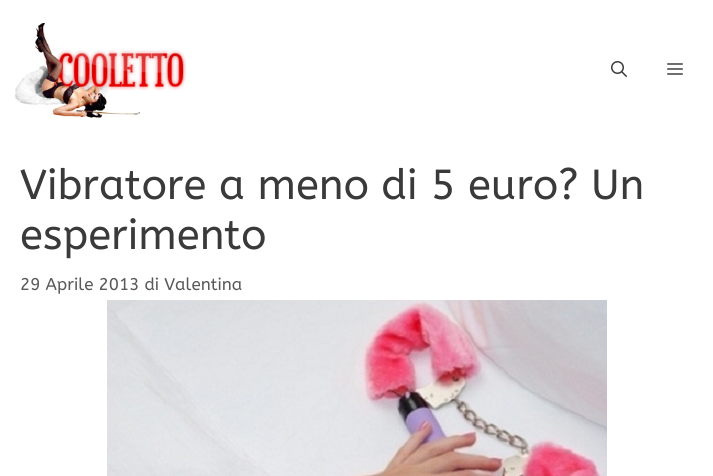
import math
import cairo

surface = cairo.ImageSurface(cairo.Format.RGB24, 713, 476)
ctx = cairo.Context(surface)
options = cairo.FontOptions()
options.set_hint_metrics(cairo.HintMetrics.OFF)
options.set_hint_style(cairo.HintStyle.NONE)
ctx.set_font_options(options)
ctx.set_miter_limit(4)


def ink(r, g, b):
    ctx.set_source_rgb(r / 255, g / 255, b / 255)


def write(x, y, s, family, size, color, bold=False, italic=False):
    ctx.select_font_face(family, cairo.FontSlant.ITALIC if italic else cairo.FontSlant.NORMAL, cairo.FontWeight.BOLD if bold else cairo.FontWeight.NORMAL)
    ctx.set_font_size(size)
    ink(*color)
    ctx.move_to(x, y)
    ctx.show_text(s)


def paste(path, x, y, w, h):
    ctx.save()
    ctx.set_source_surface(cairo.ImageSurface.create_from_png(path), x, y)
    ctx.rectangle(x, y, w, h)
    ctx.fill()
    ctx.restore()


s1 = dict(family="ABeeZee", size=42, color=(58, 58, 58))
s2 = dict(family="ABeeZee", size=17, color=(89, 89, 89))

ink(255, 255, 255)
ctx.paint()
paste("pic1.png", 15, 23, 172, 95)
paste("pic2.png", 611, 61, 16, 16)
paste("pic3.png", 667, 63, 16, 12)
write(20, 199, "Vibratore a meno di 5 euro? Un", **s1)
write(20, 249, "esperimento", **s1)
write(20, 290, "29 Aprile 2013 di Valentina", **s2)
paste("pic4.png", 107, 300, 500, 176)
surface.write_to_png("screenshot.png")
